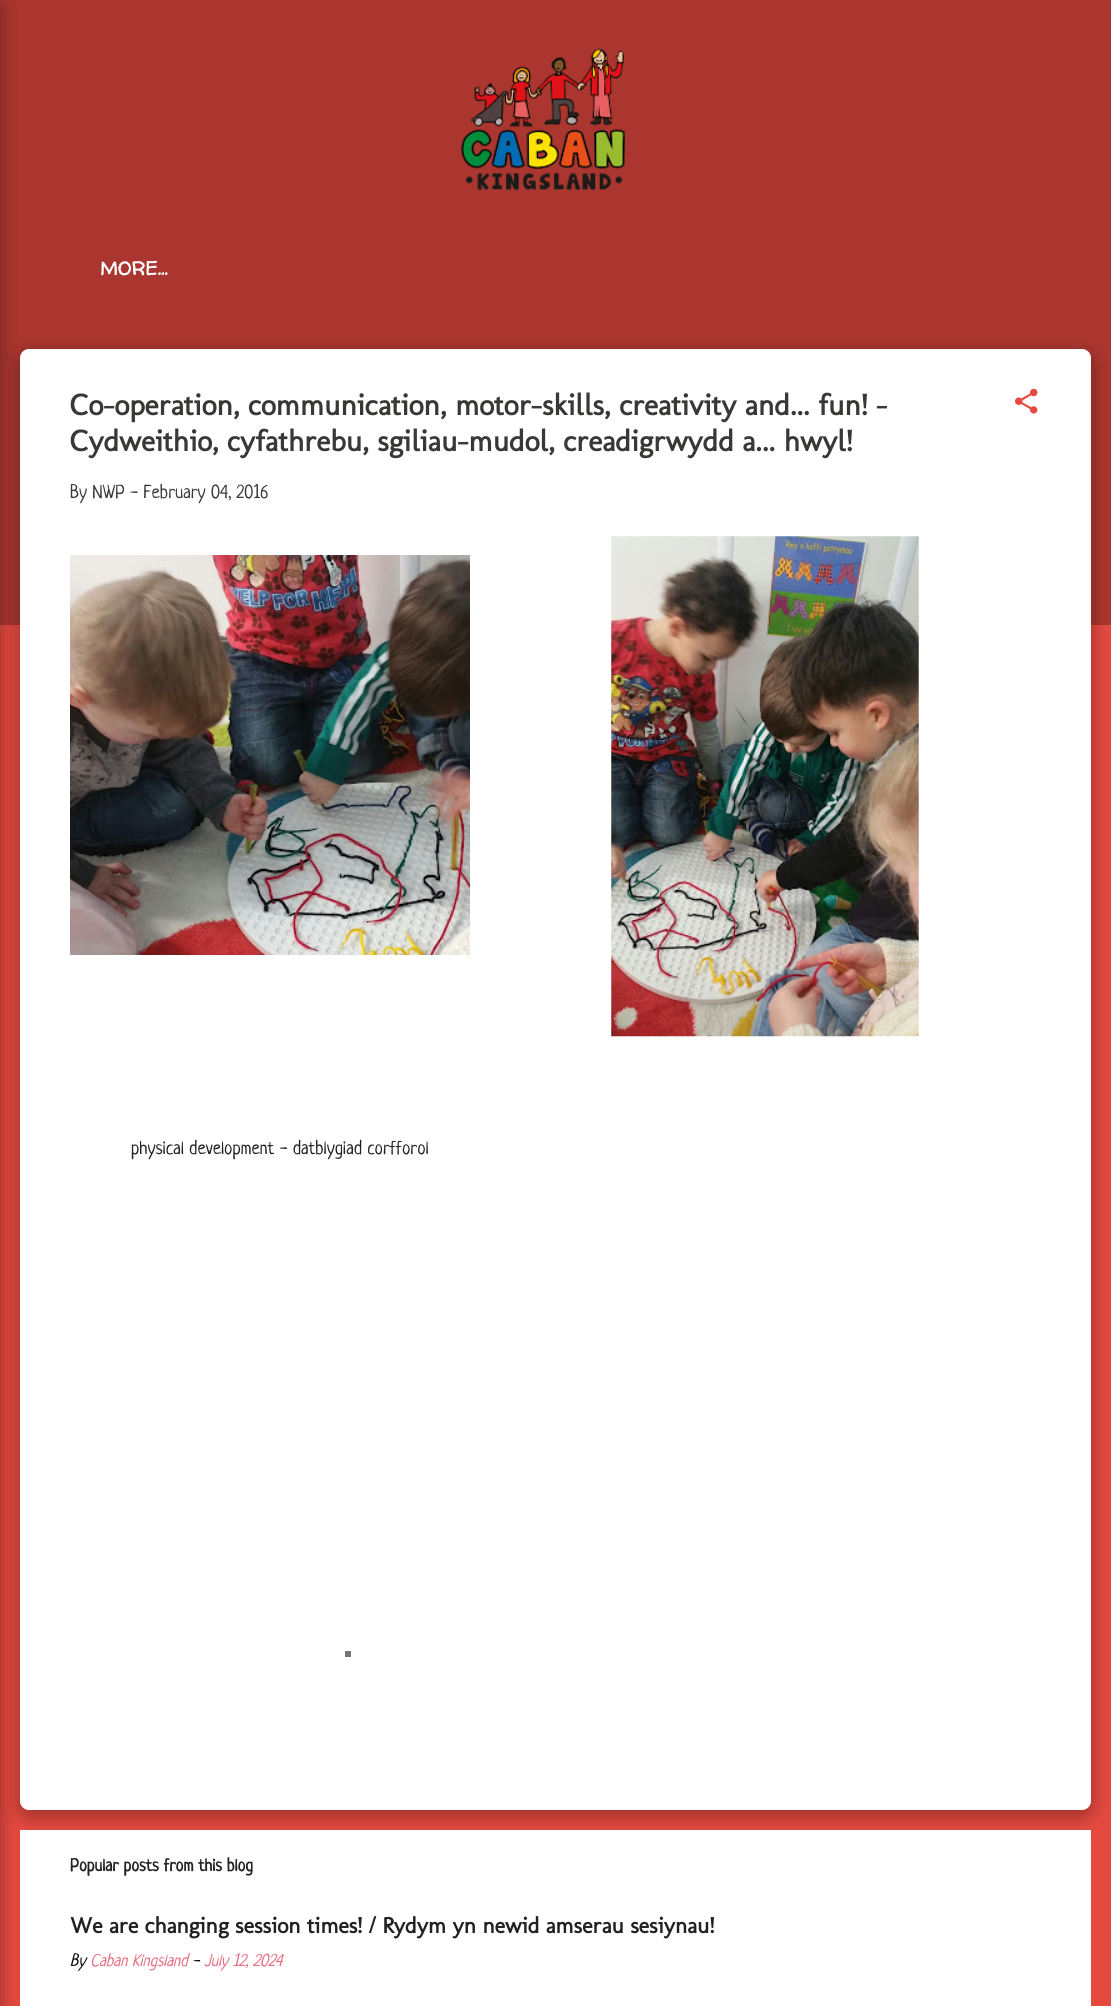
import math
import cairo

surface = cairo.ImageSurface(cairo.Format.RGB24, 1111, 2006)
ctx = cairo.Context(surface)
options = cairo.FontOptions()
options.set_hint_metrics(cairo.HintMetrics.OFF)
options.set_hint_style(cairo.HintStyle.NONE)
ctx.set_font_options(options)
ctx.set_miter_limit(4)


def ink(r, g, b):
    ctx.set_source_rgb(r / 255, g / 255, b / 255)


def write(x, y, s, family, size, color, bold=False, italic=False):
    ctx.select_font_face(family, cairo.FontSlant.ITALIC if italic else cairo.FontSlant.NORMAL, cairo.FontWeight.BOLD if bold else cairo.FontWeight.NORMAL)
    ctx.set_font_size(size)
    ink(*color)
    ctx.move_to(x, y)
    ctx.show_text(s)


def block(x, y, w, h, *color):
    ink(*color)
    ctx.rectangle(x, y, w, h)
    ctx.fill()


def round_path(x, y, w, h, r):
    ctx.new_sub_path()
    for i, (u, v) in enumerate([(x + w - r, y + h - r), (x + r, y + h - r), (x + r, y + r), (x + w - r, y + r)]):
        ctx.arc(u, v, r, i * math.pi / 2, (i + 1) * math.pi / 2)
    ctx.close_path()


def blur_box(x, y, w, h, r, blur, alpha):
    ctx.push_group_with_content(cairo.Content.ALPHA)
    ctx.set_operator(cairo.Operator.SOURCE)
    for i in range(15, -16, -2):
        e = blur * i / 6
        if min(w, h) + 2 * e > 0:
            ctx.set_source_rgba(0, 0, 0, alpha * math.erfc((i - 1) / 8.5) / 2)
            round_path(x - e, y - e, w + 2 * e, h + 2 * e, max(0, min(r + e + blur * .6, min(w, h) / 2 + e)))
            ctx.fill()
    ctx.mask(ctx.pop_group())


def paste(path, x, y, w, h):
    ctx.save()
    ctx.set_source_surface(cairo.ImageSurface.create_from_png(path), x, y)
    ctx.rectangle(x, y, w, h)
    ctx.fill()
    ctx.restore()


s1 = dict(family="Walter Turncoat", size=18.75, color=(255, 255, 255), bold=True)
s2 = dict(family="Molengo", size=30, color=(56, 56, 55), bold=True)
s3 = dict(family="Neucha", size=18.75, color=(56, 56, 55))
s4 = dict(family="Neucha", size=18.75, color=(33, 33, 33))
s5 = dict(family="Neucha", size=17.5, color=(33, 33, 33), bold=True)
s6 = dict(family="Molengo", size=22.5, color=(33, 33, 33), bold=True)
s7 = dict(family="Neucha", size=17, color=(0, 0, 0), italic=True)
s8 = dict(family="Neucha", size=17, color=(231, 109, 128), italic=True)

ink(229, 73, 63)
ctx.paint()
block(0, 0, 1111, 625, 170, 54, 47)
ink(0, 0, 0)
blur_box(20, 355, 1071, 1461, 9, 9.5, 0.35)
ink(255, 255, 255)
round_path(20, 349, 1071, 1461, 9)
ctx.fill()
block(20, 1830, 1071, 176, 255, 255, 255)
ink(0, 0, 0)
blur_box(-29, 6, 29, 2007, 0, 9.5, 0.35)
paste("pic1.png", 461, 48, 164, 143)
write(100, 275, "MORE…", **s1)
write(70, 415, "Co-operation, communication, motor-skills, creativity and... fun! -", **s2)
write(70, 451, "Cydweithio, cyfathrebu, sgiliau-mudol, creadigrwydd a... hwyl!", **s2)
paste("pic2.png", 1015, 388, 23, 26)
write(70, 498, "By NWP - February 04, 2016", **s3)
paste("pic3.png", 70, 555, 400, 400)
paste("pic4.png", 611, 536, 308, 501)
write(131, 1154, "physical development - datblygiad corfforol", **s4)
write(70, 1871, "Popular posts from this blog", **s5)
write(70, 1933, "We are changing session times! / Rydym yn newid amserau sesiynau!", **s6)
write(70, 1966, "By", **s7)
write(90, 1966, "Caban Kingsland", **s8)
write(192, 1966, "-", **s7)
write(204, 1966, "July 12, 2024", **s8)
block(345, 1651, 6, 6, 117, 117, 117)
surface.write_to_png("screenshot.png")
